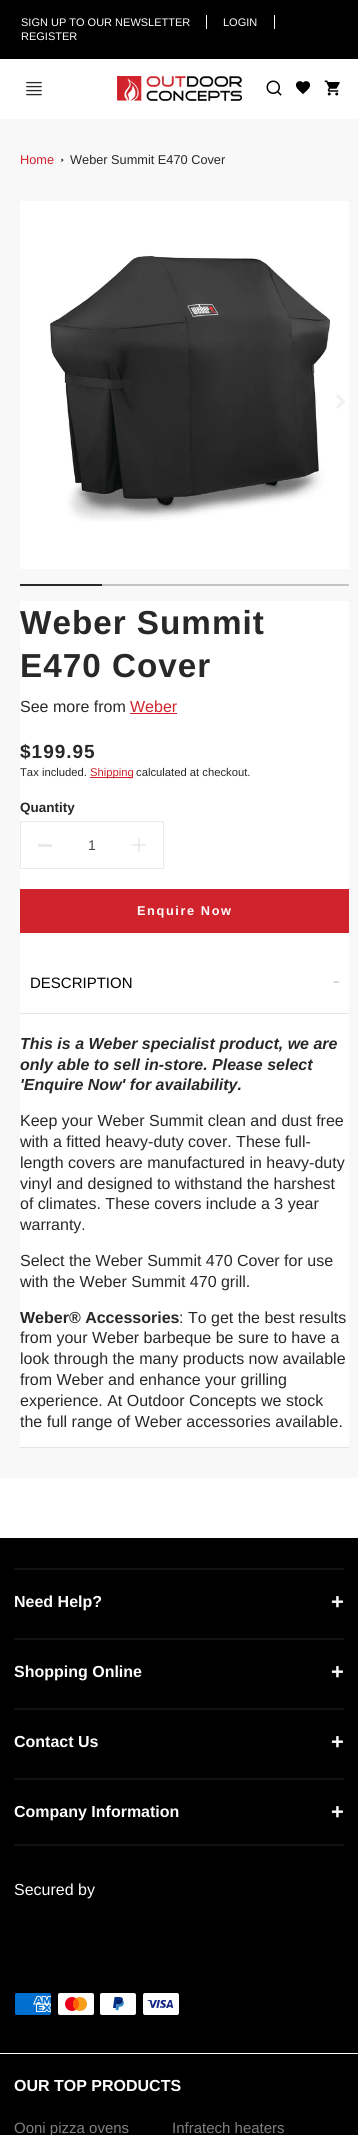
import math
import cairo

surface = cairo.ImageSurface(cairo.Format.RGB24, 358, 2135)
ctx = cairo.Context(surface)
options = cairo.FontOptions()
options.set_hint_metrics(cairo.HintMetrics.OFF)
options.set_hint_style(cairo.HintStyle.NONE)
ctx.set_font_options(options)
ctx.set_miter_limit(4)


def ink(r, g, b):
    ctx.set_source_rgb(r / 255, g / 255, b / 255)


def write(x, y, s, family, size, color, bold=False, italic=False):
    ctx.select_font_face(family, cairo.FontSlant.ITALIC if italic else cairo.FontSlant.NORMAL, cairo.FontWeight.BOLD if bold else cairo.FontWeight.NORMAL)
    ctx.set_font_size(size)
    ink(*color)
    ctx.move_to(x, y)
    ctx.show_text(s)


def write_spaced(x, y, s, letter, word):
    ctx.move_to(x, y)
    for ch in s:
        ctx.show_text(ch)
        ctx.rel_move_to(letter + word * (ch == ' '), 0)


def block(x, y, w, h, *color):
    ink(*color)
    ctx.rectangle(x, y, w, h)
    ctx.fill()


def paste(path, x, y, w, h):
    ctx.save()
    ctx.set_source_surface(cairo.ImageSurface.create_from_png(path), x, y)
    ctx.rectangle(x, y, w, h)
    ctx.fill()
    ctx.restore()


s1 = dict(family="Liberation Sans", size=11, color=(255, 253, 253))
s2 = dict(family="Liberation Sans", size=12.75, color=(209, 35, 44))
s3 = dict(family="Liberation Sans", size=12.75, color=(40, 40, 40))
s4 = dict(family="Liberation Sans", size=16, color=(40, 40, 40))
s5 = dict(family="Liberation Sans", size=16, color=(209, 35, 44))
s6 = dict(family="Liberation Sans", size=11.25, color=(40, 40, 40))
s7 = dict(family="Liberation Sans", size=11.25, color=(209, 35, 44))
s8 = dict(family="Liberation Sans", size=13.5, color=(40, 40, 40), bold=True)
s9 = dict(family="Liberation Sans", size=14, color=(72, 72, 72))
s10 = dict(family="Liberation Sans", size=15, color=(0, 0, 0))
s11 = dict(family="Liberation Serif", size=12, color=(128, 128, 128))
s12 = dict(family="Liberation Sans", size=16, color=(40, 40, 40), bold=True, italic=True)
s13 = dict(family="Liberation Sans", size=16, color=(40, 40, 40), bold=True)
s14 = dict(family="Liberation Sans", size=16, color=(255, 253, 253), bold=True)
s15 = dict(family="Liberation Sans", size=22, color=(255, 253, 253), bold=True)
s16 = dict(family="Liberation Sans", size=16, color=(255, 253, 253))
s17 = dict(family="Liberation Sans", size=15, color=(128, 128, 128))

ink(248, 248, 248)
ctx.paint()
block(0, 0, 358, 59, 0, 0, 0)
block(206, 15, 1, 14, 255, 255, 255)
write(21, 26, "SIGN UP TO OUR NEWSLETTER", **s1)
block(274, 15, 1, 14, 255, 255, 255)
write(223, 26, "LOGIN", **s1)
write(21, 40, "REGISTER", **s1)
block(0, 59, 358, 60, 255, 255, 255)
paste("pic1.png", 26, 81, 16, 15)
paste("pic2.png", 117, 76, 125, 25)
paste("pic3.png", 266, 80, 16, 16)
paste("pic4.png", 295, 81, 16, 13)
paste("pic5.png", 324, 80, 16, 16)
write(20, 164, "Home", **s2)
ink(40, 40, 40)
ctx.new_path()
ctx.move_to(61.5, 158.5)
ctx.line_to(63.5, 160)
ctx.line_to(62.5, 161)
ctx.line_to(61, 159)
ctx.close_path()
ctx.fill()
ctx.new_path()
ctx.move_to(62.5, 159.5)
ctx.line_to(63.5, 160)
ctx.line_to(61.5, 162)
ctx.line_to(61, 161.5)
ctx.close_path()
ctx.fill()
write(70, 164, "Weber Summit E470 Cover", **s3)
block(20, 201, 329, 368, 255, 255, 255)
paste("pic6.png", 49, 255, 281, 267)
paste("pic7.png", 336, 394, 9, 15)
block(20, 584, 82, 2, 40, 40, 40)
block(102, 584, 247, 2, 196, 196, 196)
block(20, 601, 329, 846, 255, 255, 255)
ctx.select_font_face("Liberation Sans", cairo.FontSlant.NORMAL, cairo.FontWeight.BOLD)
ctx.set_font_size(33.25)
ink(40, 40, 40)
write_spaced(20, 634, "Weber Summit", 1, 0)
write_spaced(20, 677, "E470 Cover", 1, 0)
write(20, 712, "See more from", **s4)
write(130, 712, "Weber", **s5)
block(130, 713, 47, 1, 209, 35, 44)
ctx.select_font_face("Liberation Sans", cairo.FontSlant.NORMAL, cairo.FontWeight.BOLD)
ctx.set_font_size(19)
ink(40, 40, 40)
write_spaced(20, 758, "$199.95", 1, 0)
write(20, 776, "Tax included.", **s6)
block(90, 777, 43, 1, 209, 35, 44)
write(90, 776, "Shipping", **s7)
write(136, 776, "calculated at checkout.", **s6)
write(20, 812, "Quantity", **s8)
ctx.rectangle(20.5, 821.5, 143, 47)
ink(234, 234, 234)
ctx.set_line_width(1)
ctx.stroke()
block(38, 844, 14, 3, 234, 234, 234)
write(88, 850, "1", **s9)
paste("pic8.png", 132, 838, 14, 14)
block(20, 889, 329, 44, 209, 35, 44)
ctx.select_font_face("Liberation Sans", cairo.FontSlant.NORMAL, cairo.FontWeight.BOLD)
ctx.set_font_size(12.75)
ink(255, 253, 253)
write_spaced(137, 915, "Enquire Now", 1.6, 0)
block(20, 1447, 329, 1, 229, 229, 229)
write(30, 988, "DESCRIPTION", **s10)
write(333, 986, "−", **s11)
block(20, 1013, 329, 1, 229, 229, 229)
write(20, 1049, "This is a Weber specialist product, we are", **s12)
write(20, 1070, "only able to sell in-store. Please select", **s12)
write(20, 1090, "'Enquire Now' for availability.", **s12)
write(20, 1126, "Keep your Weber Summit clean and dust free", **s4)
write(20, 1147, "with a fitted heavy-duty cover. These full-", **s4)
write(20, 1168, "length covers are manufactured in heavy-duty", **s4)
write(20, 1189, "vinyl and designed to withstand the harshest", **s4)
write(20, 1209, "of climates. These covers include a 3 year", **s4)
write(20, 1230, "warranty.", **s4)
write(20, 1266, "Select the Weber Summit 470 Cover for use", **s4)
write(20, 1287, "with the Weber Summit 470 grill.", **s4)
write(20, 1323, "Weber® Accessories", **s13)
write(179, 1323, ": To get the best results", **s4)
write(20, 1343, "from your Weber barbeque be sure to have a", **s4)
write(20, 1364, "look through the many products now available", **s4)
write(20, 1385, "from Weber and enhance your grilling", **s4)
write(20, 1406, "experience. At Outdoor Concepts we stock", **s4)
write(20, 1427, "the full range of Weber accessories available.", **s4)
block(0, 1478, 358, 60, 255, 255, 255)
block(0, 1538, 358, 597, 0, 0, 0)
block(14, 1568, 330, 2, 17, 17, 17)
write(14, 1607, "Need Help?", **s14)
write(331, 1609, "+", **s15)
block(14, 1638, 330, 2, 17, 17, 17)
write(14, 1677, "Shopping Online", **s14)
write(331, 1679, "+", **s15)
block(14, 1708, 330, 2, 17, 17, 17)
write(14, 1747, "Contact Us", **s14)
write(331, 1749, "+", **s15)
block(14, 1778, 330, 2, 17, 17, 17)
block(14, 1844, 330, 2, 17, 17, 17)
write(14, 1817, "Company Information", **s14)
write(331, 1819, "+", **s15)
write(14, 1895, "Secured by", **s16)
paste("pic9.png", 15, 1993, 36, 22)
paste("pic10.png", 58, 1993, 36, 22)
paste("pic11.png", 100, 1993, 36, 22)
paste("pic12.png", 143, 1993, 36, 22)
block(0, 2053, 358, 1, 255, 255, 255)
write(14, 2091, "OUR TOP PRODUCTS", **s14)
write(14, 2133, "Ooni pizza ovens", **s17)
write(172, 2133, "Infratech heaters", **s17)
surface.write_to_png("screenshot.png")
